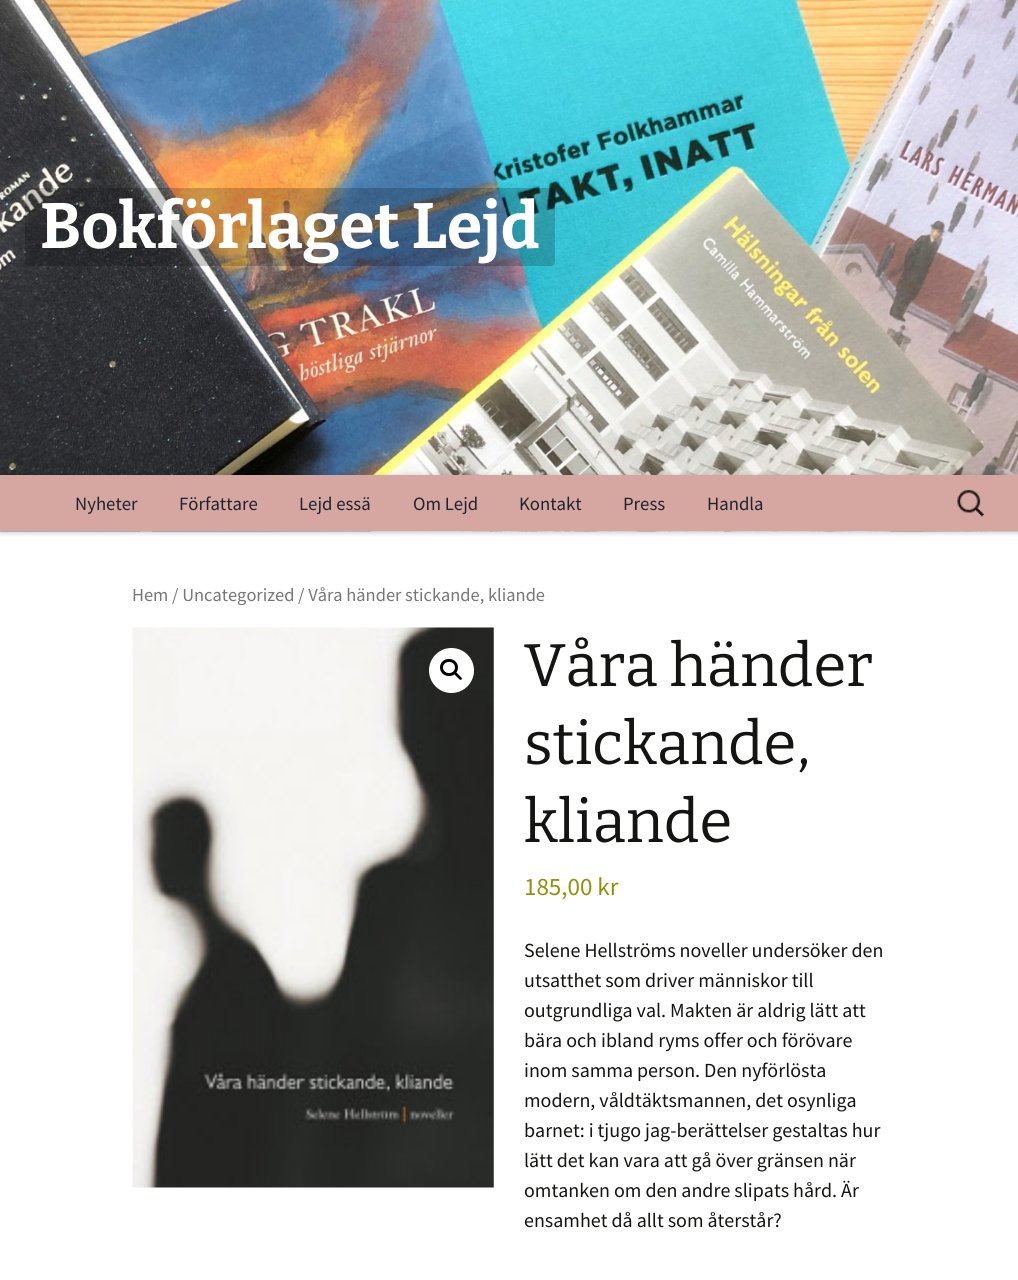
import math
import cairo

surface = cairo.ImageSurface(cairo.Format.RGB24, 1018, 1280)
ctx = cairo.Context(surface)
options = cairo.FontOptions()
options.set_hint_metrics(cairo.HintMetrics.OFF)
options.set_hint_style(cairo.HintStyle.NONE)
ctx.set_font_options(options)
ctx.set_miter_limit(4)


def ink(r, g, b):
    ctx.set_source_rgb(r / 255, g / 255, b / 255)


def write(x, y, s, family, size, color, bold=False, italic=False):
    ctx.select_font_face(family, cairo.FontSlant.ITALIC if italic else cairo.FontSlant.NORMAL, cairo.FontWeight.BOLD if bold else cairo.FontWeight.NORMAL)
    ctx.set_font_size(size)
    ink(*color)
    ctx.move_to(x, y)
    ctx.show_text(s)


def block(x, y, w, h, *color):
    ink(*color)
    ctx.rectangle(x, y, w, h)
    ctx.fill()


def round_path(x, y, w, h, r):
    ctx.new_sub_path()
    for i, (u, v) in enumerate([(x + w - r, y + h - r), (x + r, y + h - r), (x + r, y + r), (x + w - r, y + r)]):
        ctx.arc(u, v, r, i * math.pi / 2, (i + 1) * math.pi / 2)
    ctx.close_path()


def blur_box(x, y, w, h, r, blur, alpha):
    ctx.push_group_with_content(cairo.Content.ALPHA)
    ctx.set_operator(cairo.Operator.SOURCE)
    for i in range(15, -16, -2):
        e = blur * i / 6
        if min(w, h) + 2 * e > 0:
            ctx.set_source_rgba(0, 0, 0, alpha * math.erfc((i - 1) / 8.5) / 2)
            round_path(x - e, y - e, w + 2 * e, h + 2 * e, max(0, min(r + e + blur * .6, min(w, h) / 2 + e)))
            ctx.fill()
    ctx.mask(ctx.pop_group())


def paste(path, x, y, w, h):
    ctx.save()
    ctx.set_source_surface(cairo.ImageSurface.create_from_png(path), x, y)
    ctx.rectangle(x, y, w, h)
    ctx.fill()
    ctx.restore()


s1 = dict(family="Bitter Thin", size=64, color=(255, 255, 255))
s2 = dict(family="Source Sans Pro", size=18.75, color=(28, 36, 49))
s3 = dict(family="Source Sans Pro", size=18.4, color=(118, 118, 118))
s4 = dict(family="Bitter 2 Thin", size=60, color=(20, 20, 18))
s5 = dict(family="Source Sans Pro", size=25, color=(149, 142, 9))
s6 = dict(family="Source Sans Pro", size=20, color=(20, 20, 18))

ink(255, 255, 255)
ctx.paint()
paste("pic1.png", 0, 0, 1018, 532)
ctx.set_source_rgba(0, 0, 0, 0.2)
round_path(25, 188, 530, 78, 4)
ctx.fill()
write(40, 248, "Bokförlaget Lejd", **s1)
ink(0, 0, 0)
blur_box(0, 476, 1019, 57, 0, 2.5, 0.2)
block(0, 475, 1018, 56, 214, 167, 161)
write(75, 510, "Nyheter", **s2)
write(179, 510, "Författare", **s2)
write(299, 510, "Lejd essä", **s2)
write(413, 510, "Om Lejd", **s2)
write(519, 510, "Kontakt", **s2)
write(623, 510, "Press", **s2)
write(707, 510, "Handla", **s2)
paste("pic2.png", 957, 489, 27, 28)
write(132, 601, "Hem / Uncategorized / Våra händer stickande, kliande", **s3)
paste("pic3.png", 132, 627, 362, 561)
ink(255, 255, 255)
ctx.arc(451.5, 670.5, 22.5, 0, 2 * math.pi)
ctx.fill()
round_path(441.5, 660.5, 15, 14, 7)
ink(0, 0, 0)
ctx.set_line_width(3)
ctx.stroke()
ctx.new_path()
ctx.move_to(454.5, 672.5)
ctx.curve_to(456, 671, 458, 674.5, 459, 675)
ctx.curve_to(459.5, 676, 463, 678, 461.5, 679.5)
ctx.curve_to(460, 681, 458, 677.5, 457, 677)
ctx.curve_to(456.5, 676, 453, 674, 454.5, 672.5)
ctx.close_path()
ctx.fill()
write(524, 686, "Våra händer", **s4)
write(524, 764, "stickande,", **s4)
write(524, 842, "kliande", **s4)
write(524, 895, "185,00 kr", **s5)
write(524, 957, "Selene Hellströms noveller undersöker den", **s6)
write(524, 987, "utsatthet som driver människor till", **s6)
write(524, 1017, "outgrundliga val. Makten är aldrig lätt att", **s6)
write(524, 1047, "bära och ibland ryms offer och förövare", **s6)
write(524, 1077, "inom samma person. Den nyförlösta", **s6)
write(524, 1107, "modern, våldtäktsmannen, det osynliga", **s6)
write(524, 1137, "barnet: i tjugo jag-berättelser gestaltas hur", **s6)
write(524, 1167, "lätt det kan vara att gå över gränsen när", **s6)
write(524, 1197, "omtanken om den andre slipats hård. Är", **s6)
write(524, 1227, "ensamhet då allt som återstår?", **s6)
surface.write_to_png("screenshot.png")
